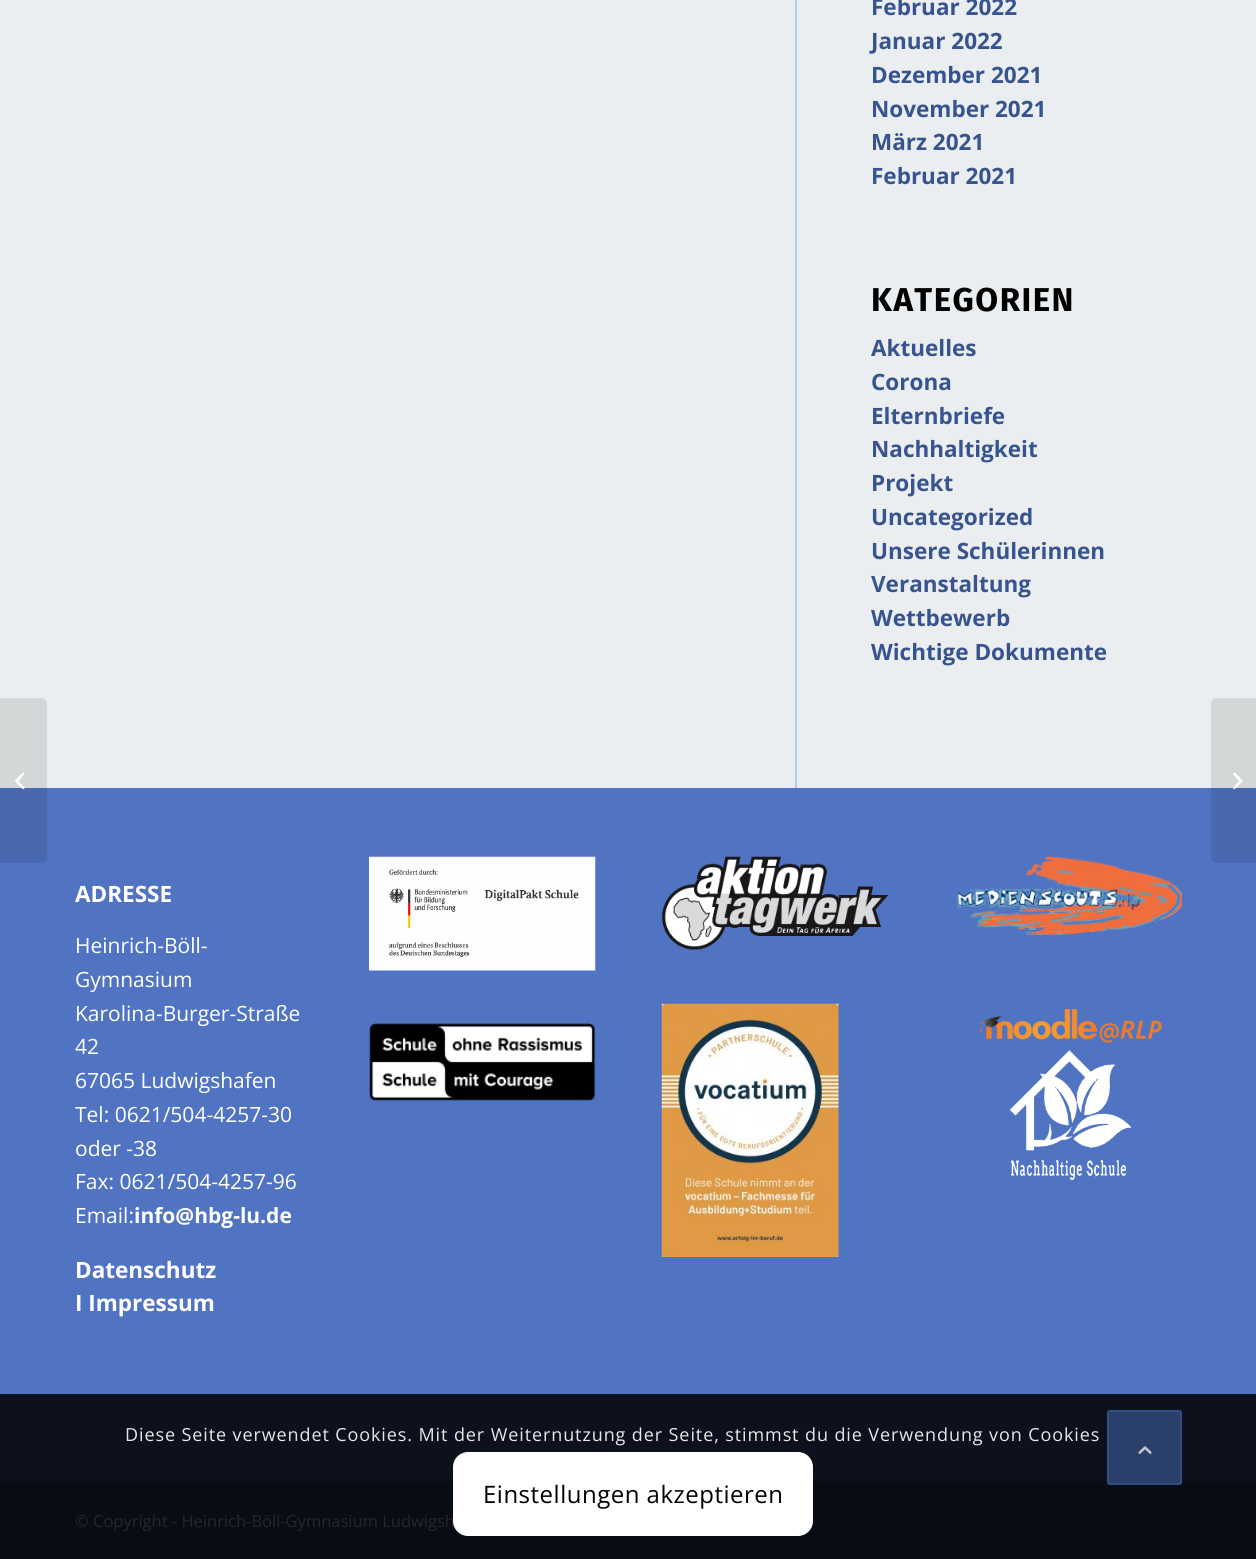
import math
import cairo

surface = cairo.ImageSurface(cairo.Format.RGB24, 1256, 1559)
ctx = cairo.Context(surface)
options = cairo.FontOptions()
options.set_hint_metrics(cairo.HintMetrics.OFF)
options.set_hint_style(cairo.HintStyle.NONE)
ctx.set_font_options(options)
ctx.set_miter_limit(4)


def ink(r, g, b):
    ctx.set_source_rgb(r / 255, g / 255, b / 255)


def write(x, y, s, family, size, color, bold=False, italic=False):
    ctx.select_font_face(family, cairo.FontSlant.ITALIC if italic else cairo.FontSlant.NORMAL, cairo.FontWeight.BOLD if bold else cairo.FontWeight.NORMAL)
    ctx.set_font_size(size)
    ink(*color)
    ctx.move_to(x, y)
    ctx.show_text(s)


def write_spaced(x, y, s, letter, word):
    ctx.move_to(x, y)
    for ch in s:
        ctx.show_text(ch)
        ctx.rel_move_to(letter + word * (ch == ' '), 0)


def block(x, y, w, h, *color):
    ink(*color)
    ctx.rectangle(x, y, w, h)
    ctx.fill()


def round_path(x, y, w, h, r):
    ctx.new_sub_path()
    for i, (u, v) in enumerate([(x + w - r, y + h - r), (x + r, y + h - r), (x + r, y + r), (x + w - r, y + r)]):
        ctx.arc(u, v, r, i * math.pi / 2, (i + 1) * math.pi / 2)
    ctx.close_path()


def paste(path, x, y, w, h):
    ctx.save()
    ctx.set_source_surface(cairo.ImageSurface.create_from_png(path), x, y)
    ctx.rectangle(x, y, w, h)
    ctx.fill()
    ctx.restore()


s1 = dict(family="Open Sans", size=22.5, color=(56, 84, 143), bold=True)
s2 = dict(family="Open Sans", size=22.5, color=(255, 255, 255), bold=True)
s3 = dict(family="Open Sans", size=21, color=(255, 255, 255))
s4 = dict(family="Open Sans", size=21, color=(255, 255, 255), bold=True)
s5 = dict(family="Open Sans", size=16.5, color=(38, 38, 38))

ink(235, 238, 240)
ctx.paint()
block(0, 788, 1256, 606, 80, 116, 194)
ctx.set_source_rgba(0, 0, 0, 0.1)
ctx.new_path()
ctx.move_to(0, 698)
ctx.line_to(41, 698)
ctx.curve_to(44.5, 698, 47, 700.5, 47, 704)
ctx.line_to(47, 857)
ctx.curve_to(47, 860.5, 44.5, 863, 41, 863)
ctx.line_to(0, 863)
ctx.close_path()
ctx.fill()
paste("pic1.png", 15, 772, 10, 18)
block(795, 0, 2, 788, 183, 201, 235)
write(871, 15, "Februar 2022", **s1)
write(871, 49, "Januar 2022", **s1)
write(871, 83, "Dezember 2021", **s1)
write(871, 117, "November 2021", **s1)
write(871, 150, "März 2021", **s1)
write(871, 184, "Februar 2021", **s1)
ctx.select_font_face("Fira Sans", cairo.FontSlant.NORMAL, cairo.FontWeight.BOLD)
ctx.set_font_size(33)
ink(0, 0, 0)
write_spaced(871, 311, "KATEGORIEN", 1.5, 0)
write(871, 356, "Aktuelles", **s1)
write(871, 390, "Corona", **s1)
write(871, 424, "Elternbriefe", **s1)
write(871, 457, "Nachhaltigkeit", **s1)
write(871, 491, "Projekt", **s1)
write(871, 525, "Uncategorized", **s1)
write(871, 559, "Unsere Schülerinnen", **s1)
write(871, 592, "Veranstaltung", **s1)
write(871, 626, "Wettbewerb", **s1)
write(871, 660, "Wichtige Dokumente", **s1)
block(0, 1394, 1256, 87, 12, 17, 29)
write(75, 902, "ADRESSE", **s2)
write(75, 953, "Heinrich-Böll-", **s3)
write(75, 987, "Gymnasium", **s3)
write(75, 1021, "Karolina-Burger-Straße", **s3)
write(75, 1054, "42", **s3)
write(75, 1088, "67065 Ludwigshafen", **s3)
write(75, 1122, "Tel: 0621/504-4257-30", **s3)
write(75, 1156, "oder -38", **s3)
write(75, 1189, "Fax: 0621/504-4257-96", **s3)
write(75, 1223, "Email:", **s3)
write(134, 1223, "info@hbg-lu.de", **s4)
write(75, 1278, "Datenschutz", **s2)
write(75, 1311, "I Impressum", **s2)
paste("pic2.png", 369, 856, 227, 115)
paste("pic3.png", 369, 1023, 227, 78)
paste("pic4.png", 661, 856, 227, 94)
paste("pic5.png", 661, 1003, 178, 254)
paste("pic6.png", 956, 856, 226, 80)
paste("pic7.png", 980, 1009, 182, 171)
block(0, 1481, 1256, 78, 8, 13, 21)
write(75, 1527, "© Copyright - Heinrich-Böll-Gymnasium Ludwigsh", **s5)
ctx.set_source_rgba(0, 0, 0, 0.1)
ctx.new_path()
ctx.move_to(1217, 698)
ctx.line_to(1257, 698)
ctx.line_to(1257, 863)
ctx.line_to(1217, 863)
ctx.curve_to(1213.5, 863, 1211, 860.5, 1211, 857)
ctx.line_to(1211, 704)
ctx.curve_to(1211, 700.5, 1213.5, 698, 1217, 698)
ctx.close_path()
ctx.fill()
paste("pic8.png", 1233, 772, 10, 18)
ctx.set_source_rgba(0.22, 0.329, 0.549, 0.7)
round_path(1107, 1410, 75, 75, 3)
ctx.fill()
round_path(1108, 1411, 73, 73, 2)
ctx.set_source_rgba(0.22, 0.329, 0.561, 0.7)
ctx.stroke()
paste("pic9.png", 1138, 1446, 14, 8)
ctx.set_font_size(18)
ink(231, 231, 232)
write_spaced(125, 1441, "Diese Seite verwendet Cookies. Mit der Weiternutzung der Seite, stimmst du die Verwendung von Cookies", 0.9, 0)
ink(255, 255, 255)
round_path(453, 1452, 360, 84, 15)
ctx.fill()
ctx.set_font_size(24)
ink(0, 0, 0)
write_spaced(483, 1503, "Einstellungen akzeptieren", 0.5, 0)
surface.write_to_png("screenshot.png")
